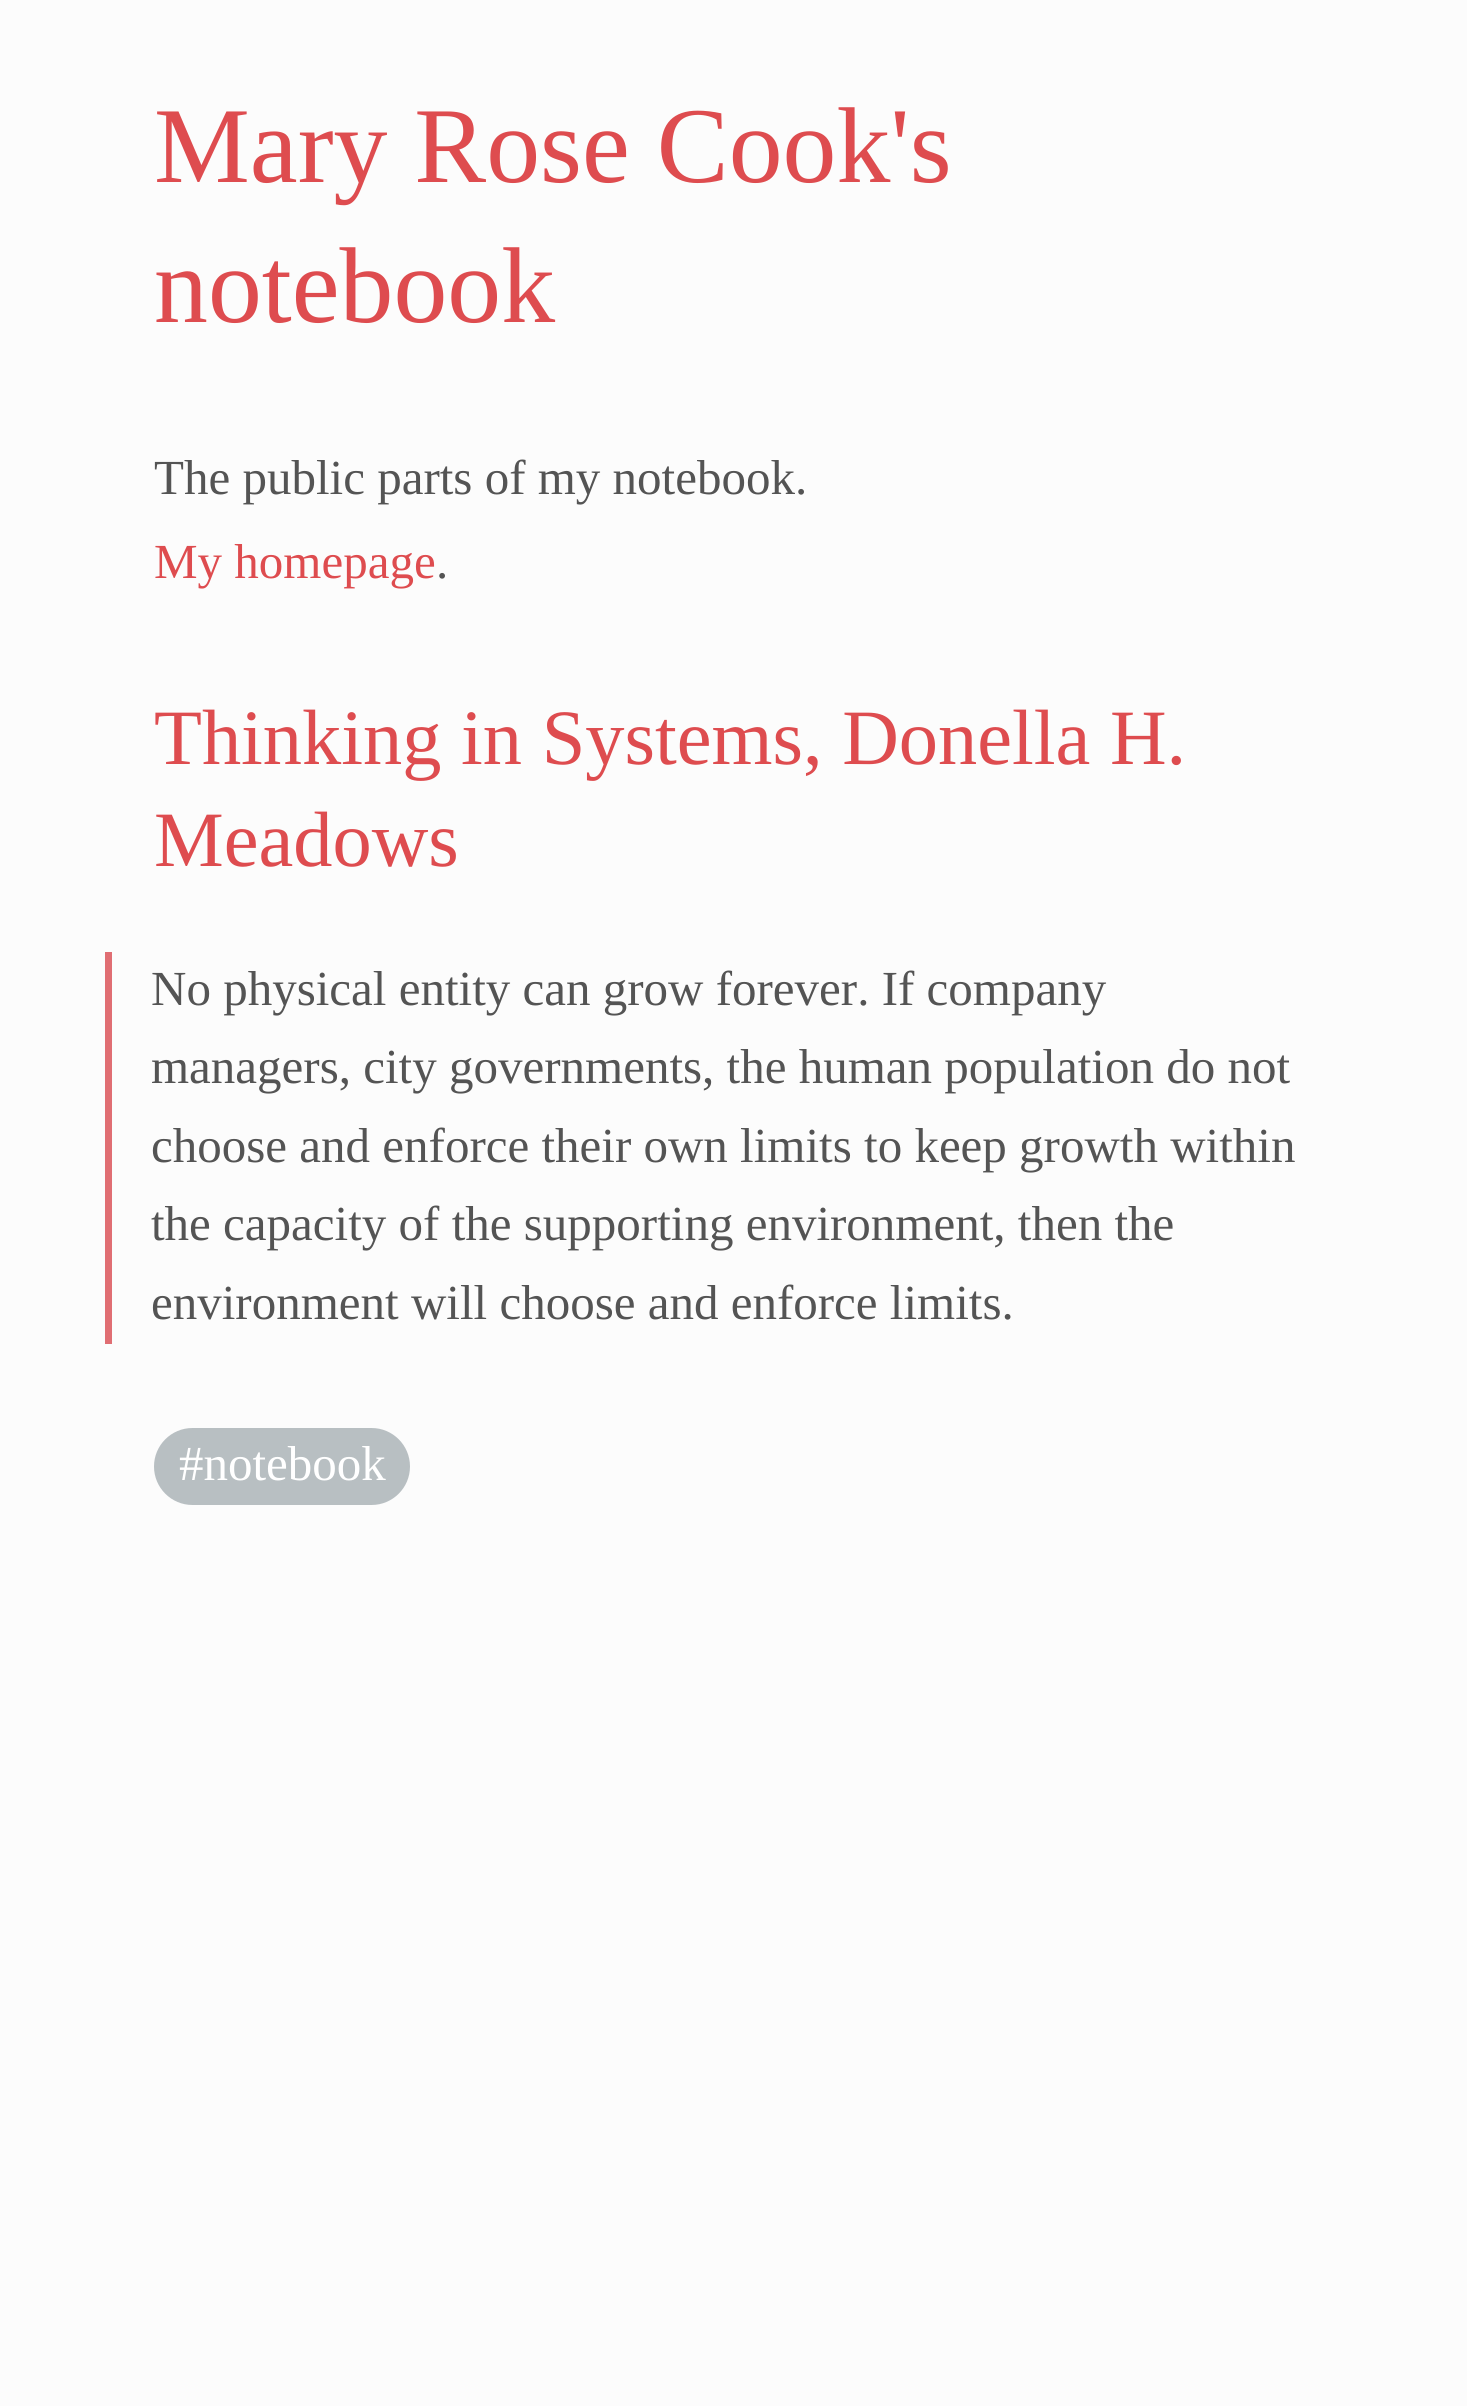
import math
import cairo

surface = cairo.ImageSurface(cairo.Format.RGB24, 1467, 2406)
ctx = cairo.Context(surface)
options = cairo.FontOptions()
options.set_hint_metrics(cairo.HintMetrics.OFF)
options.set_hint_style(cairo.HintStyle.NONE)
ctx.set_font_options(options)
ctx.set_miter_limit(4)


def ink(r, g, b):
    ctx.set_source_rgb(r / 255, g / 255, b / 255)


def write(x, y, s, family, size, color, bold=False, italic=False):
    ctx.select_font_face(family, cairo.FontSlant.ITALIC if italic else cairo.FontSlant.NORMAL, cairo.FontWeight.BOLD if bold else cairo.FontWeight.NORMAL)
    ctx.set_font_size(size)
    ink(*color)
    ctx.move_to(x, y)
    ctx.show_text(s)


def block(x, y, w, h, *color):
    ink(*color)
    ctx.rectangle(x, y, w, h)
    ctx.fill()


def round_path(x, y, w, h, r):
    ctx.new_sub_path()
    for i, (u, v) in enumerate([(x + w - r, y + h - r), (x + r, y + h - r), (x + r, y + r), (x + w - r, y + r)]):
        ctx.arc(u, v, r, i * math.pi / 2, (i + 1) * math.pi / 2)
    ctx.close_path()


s1 = dict(family="Liberation Serif", size=107.75, color=(222, 76, 79))
s2 = dict(family="Liberation Serif", size=49, color=(84, 84, 84))
s3 = dict(family="Liberation Serif", size=49, color=(222, 76, 79))
s4 = dict(family="Liberation Serif", size=78.4, color=(222, 76, 79))
s5 = dict(family="Liberation Serif", size=49, color=(255, 255, 255))

ink(252, 252, 252)
ctx.paint()
write(154, 182, "Mary Rose Cook's", **s1)
write(154, 322, "notebook", **s1)
write(154, 494, "The public parts of my notebook.", **s2)
write(154, 578, "My homepage", **s3)
write(436, 578, ".", **s2)
write(154, 764, "Thinking in Systems, Donella H.", **s4)
write(154, 866, "Meadows", **s4)
block(105, 952, 7, 392, 224, 110, 115)
write(151, 1005, "No physical entity can grow forever. If company", **s2)
write(151, 1083, "managers, city governments, the human population do not", **s2)
write(151, 1162, "choose and enforce their own limits to keep growth within", **s2)
write(151, 1240, "the capacity of the supporting environment, then the", **s2)
write(151, 1319, "environment will choose and enforce limits.", **s2)
ink(184, 191, 194)
round_path(154, 1428, 256, 77, 38.5)
ctx.fill()
write(179, 1480, "#notebook", **s5)
surface.write_to_png("screenshot.png")
